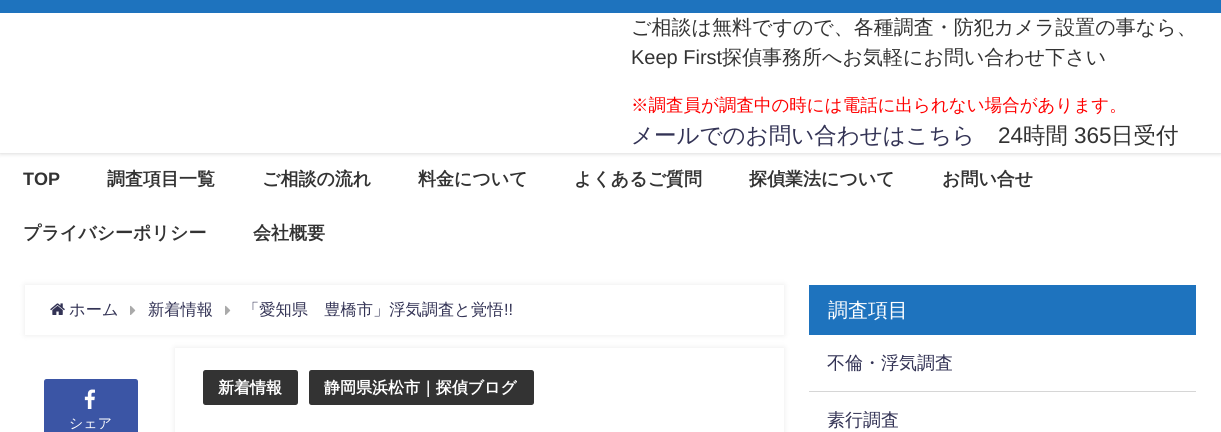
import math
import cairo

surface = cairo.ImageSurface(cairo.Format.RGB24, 1221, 432)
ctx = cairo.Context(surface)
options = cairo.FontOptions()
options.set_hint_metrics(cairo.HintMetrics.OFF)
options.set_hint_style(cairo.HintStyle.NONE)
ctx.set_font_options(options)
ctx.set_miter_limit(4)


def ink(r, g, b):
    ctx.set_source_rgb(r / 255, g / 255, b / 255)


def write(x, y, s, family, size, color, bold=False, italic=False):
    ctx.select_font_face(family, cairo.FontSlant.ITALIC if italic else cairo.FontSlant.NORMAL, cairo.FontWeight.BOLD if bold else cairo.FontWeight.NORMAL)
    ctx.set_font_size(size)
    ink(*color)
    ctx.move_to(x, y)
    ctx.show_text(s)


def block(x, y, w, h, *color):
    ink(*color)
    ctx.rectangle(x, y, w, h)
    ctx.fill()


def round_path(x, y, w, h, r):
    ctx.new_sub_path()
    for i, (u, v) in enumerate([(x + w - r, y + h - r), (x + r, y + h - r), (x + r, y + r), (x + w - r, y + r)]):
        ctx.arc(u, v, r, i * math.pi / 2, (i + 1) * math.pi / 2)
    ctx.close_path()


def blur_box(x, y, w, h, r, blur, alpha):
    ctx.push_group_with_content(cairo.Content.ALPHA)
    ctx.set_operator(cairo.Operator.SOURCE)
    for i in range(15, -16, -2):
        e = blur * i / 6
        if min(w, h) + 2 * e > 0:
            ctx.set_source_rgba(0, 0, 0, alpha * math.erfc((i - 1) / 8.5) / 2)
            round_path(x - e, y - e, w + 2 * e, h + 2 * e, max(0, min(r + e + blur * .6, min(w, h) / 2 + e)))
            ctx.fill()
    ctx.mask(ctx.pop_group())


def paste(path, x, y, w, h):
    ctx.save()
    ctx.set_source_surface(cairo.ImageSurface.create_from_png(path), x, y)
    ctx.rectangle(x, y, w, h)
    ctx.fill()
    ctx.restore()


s1 = dict(family="WenQuanYi Zen Hei Medium", size=20, color=(51, 51, 51))
s2 = dict(family="Liberation Sans", size=20, color=(51, 51, 51))
s3 = dict(family="WenQuanYi Zen Hei Medium", size=17.5, color=(255, 0, 0))
s4 = dict(family="WenQuanYi Zen Hei Medium", size=22.5, color=(51, 51, 85))
s5 = dict(family="Liberation Sans", size=22.5, color=(51, 51, 51))
s6 = dict(family="WenQuanYi Zen Hei Medium", size=22.5, color=(51, 51, 51))
s7 = dict(family="Liberation Sans", size=18, color=(51, 51, 51), bold=True)
s8 = dict(family="WenQuanYi Zen Hei", size=18, color=(51, 51, 51), bold=True)
s9 = dict(family="WenQuanYi Zen Hei Medium", size=16.25, color=(51, 51, 85))
s10 = dict(family="Liberation Sans", size=16.25, color=(51, 51, 85))
s11 = dict(family="WenQuanYi Zen Hei", size=16, color=(255, 255, 255), bold=True)
s12 = dict(family="WenQuanYi Zen Hei Medium", size=14, color=(255, 255, 255))
s13 = dict(family="WenQuanYi Zen Hei Medium", size=20, color=(255, 255, 255))
s14 = dict(family="WenQuanYi Zen Hei Medium", size=18, color=(51, 51, 85))

ink(255, 255, 255)
ctx.paint()
ink(0, 0, 0)
blur_box(0, 0, 1221, 153, 0, 2.5, 0.2)
block(0, 13, 1221, 140, 255, 255, 255)
block(0, 0, 1221, 13, 30, 115, 190)
write(631, 34, "ご相談は無料ですので、各種調査・防犯カメラ設置の事なら、", **s1)
write(631, 64, "Keep First", **s2)
write(722, 64, "探偵事務所へお気軽にお問い合わせ下さい", **s1)
write(631, 111, "※調査員が調査中の時には電話に出られない場合があります。", **s3)
write(631, 143, "メールでのお問い合わせはこちら", **s4)
write(998, 143, "24", **s5)
write(1023, 143, "時間", **s6)
write(1074, 143, "365", **s5)
write(1111, 143, "日受付", **s6)
write(23, 185, "TOP", **s7)
write(107, 185, "調査項目一覧", **s8)
write(262, 185, "ご相談の流れ", **s8)
write(418, 185, "料金について", **s8)
write(574, 185, "よくあるご質問", **s8)
write(749, 185, "探偵業法について", **s8)
write(942, 185, "お問い合せ", **s8)
write(23, 239, "プライバシーポリシー", **s8)
write(253, 239, "会社概要", **s8)
ink(150, 150, 150)
blur_box(25, 285, 759, 50, 0, 3, 0.2)
block(25, 285, 759, 50, 255, 255, 255)
paste("pic1.png", 50, 303, 15, 12)
write(69, 315, "ホーム", **s9)
paste("pic2.png", 130, 305, 6, 10)
write(148, 315, "新着情報", **s9)
paste("pic2.png", 225, 305, 6, 10)
write(243, 315, "「愛知県　豊橋市」浮気調査と覚悟", **s9)
write(504, 315, "!!", **s10)
ink(150, 150, 150)
blur_box(175, 348, 609, 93, 0, 3, 0.2)
block(175, 348, 609, 84, 255, 255, 255)
ink(51, 51, 51)
round_path(203, 370, 95, 35, 2.5)
ctx.fill()
write(218, 393, "新着情報", **s11)
ink(51, 51, 51)
round_path(309, 370, 225, 35, 2.5)
ctx.fill()
write(324, 393, "静岡県浜松市｜探偵ブログ", **s11)
ink(59, 85, 165)
round_path(44, 379, 94, 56, 2.5)
ctx.fill()
paste("pic3.png", 84, 389, 11, 20)
write(69, 428, "シェア", **s12)
block(809, 285, 387, 50, 30, 115, 190)
write(828, 317, "調査項目", **s13)
block(809, 391, 387, 1, 214, 214, 214)
write(827, 369, "不倫・浮気調査", **s14)
write(827, 426, "素行調査", **s14)
surface.write_to_png("screenshot.png")
